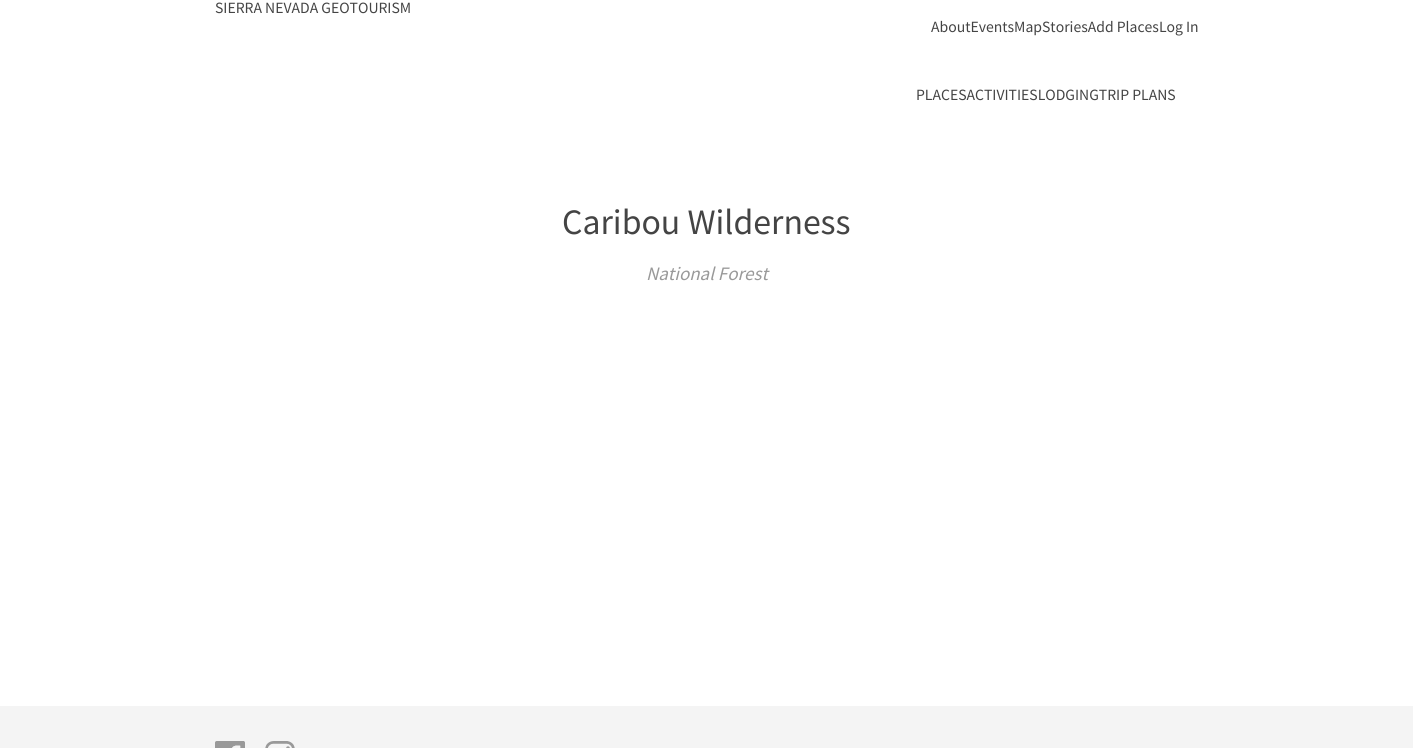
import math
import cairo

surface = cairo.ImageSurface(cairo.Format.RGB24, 1413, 748)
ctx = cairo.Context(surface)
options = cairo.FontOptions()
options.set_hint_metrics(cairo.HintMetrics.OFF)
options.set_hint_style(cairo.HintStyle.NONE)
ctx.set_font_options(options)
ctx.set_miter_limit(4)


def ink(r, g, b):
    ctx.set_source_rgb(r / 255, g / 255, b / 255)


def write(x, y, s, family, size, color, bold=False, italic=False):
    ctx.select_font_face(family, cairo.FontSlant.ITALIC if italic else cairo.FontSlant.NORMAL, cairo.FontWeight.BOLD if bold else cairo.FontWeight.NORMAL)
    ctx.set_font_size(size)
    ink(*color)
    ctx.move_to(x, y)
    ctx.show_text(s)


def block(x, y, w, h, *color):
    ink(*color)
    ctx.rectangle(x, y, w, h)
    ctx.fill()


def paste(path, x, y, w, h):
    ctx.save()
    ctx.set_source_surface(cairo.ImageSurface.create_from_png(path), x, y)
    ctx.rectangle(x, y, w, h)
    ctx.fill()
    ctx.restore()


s1 = dict(family="Noto Sans JP", size=14, color=(68, 68, 68))
s2 = dict(family="Noto Sans JP", size=32, color=(68, 68, 68))
s3 = dict(family="Noto Sans JP", size=17, color=(153, 153, 153), italic=True)

ink(255, 255, 255)
ctx.paint()
write(215, 13, "SIERRA NEVADA GEOTOURISM", **s1)
write(931, 32, "AboutEventsMapStoriesAdd PlacesLog In", **s1)
write(916, 100, "PLACESACTIVITIESLODGINGTRIP PLANS", **s1)
write(562, 234, "Caribou Wilderness", **s2)
write(646, 280, "National Forest", **s3)
block(0, 706, 1413, 42, 244, 244, 244)
paste("pic1.png", 215, 741, 30, 7)
paste("pic2.png", 265, 741, 30, 7)
surface.write_to_png("screenshot.png")
